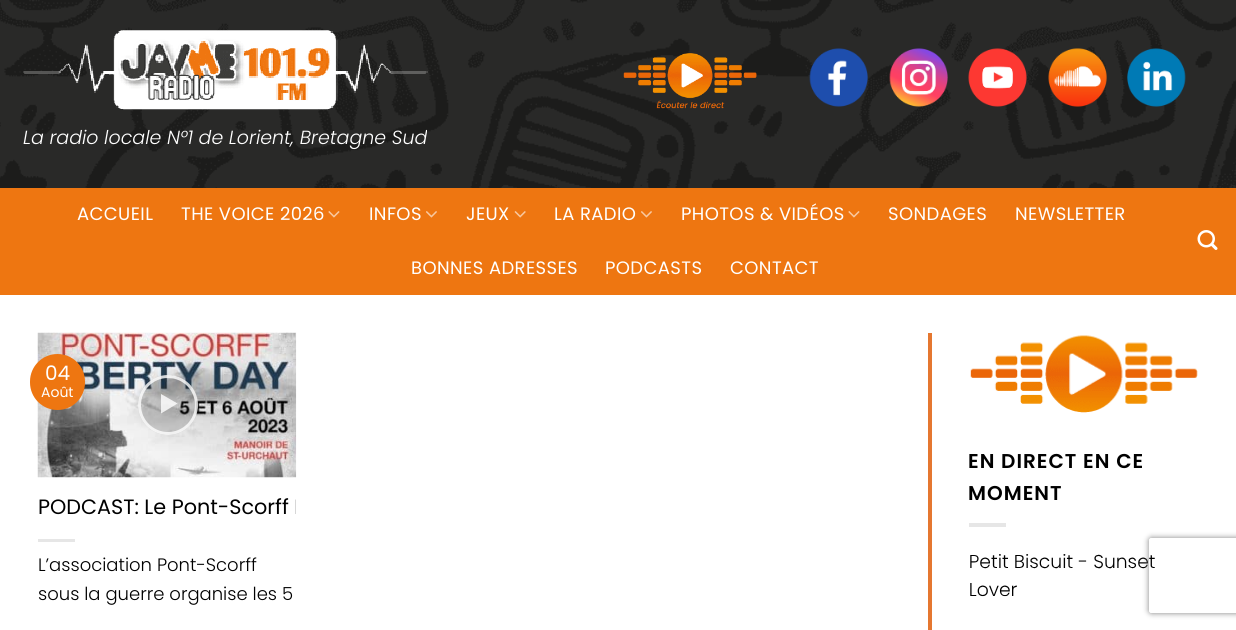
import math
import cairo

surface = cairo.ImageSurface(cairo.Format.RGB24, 1236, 630)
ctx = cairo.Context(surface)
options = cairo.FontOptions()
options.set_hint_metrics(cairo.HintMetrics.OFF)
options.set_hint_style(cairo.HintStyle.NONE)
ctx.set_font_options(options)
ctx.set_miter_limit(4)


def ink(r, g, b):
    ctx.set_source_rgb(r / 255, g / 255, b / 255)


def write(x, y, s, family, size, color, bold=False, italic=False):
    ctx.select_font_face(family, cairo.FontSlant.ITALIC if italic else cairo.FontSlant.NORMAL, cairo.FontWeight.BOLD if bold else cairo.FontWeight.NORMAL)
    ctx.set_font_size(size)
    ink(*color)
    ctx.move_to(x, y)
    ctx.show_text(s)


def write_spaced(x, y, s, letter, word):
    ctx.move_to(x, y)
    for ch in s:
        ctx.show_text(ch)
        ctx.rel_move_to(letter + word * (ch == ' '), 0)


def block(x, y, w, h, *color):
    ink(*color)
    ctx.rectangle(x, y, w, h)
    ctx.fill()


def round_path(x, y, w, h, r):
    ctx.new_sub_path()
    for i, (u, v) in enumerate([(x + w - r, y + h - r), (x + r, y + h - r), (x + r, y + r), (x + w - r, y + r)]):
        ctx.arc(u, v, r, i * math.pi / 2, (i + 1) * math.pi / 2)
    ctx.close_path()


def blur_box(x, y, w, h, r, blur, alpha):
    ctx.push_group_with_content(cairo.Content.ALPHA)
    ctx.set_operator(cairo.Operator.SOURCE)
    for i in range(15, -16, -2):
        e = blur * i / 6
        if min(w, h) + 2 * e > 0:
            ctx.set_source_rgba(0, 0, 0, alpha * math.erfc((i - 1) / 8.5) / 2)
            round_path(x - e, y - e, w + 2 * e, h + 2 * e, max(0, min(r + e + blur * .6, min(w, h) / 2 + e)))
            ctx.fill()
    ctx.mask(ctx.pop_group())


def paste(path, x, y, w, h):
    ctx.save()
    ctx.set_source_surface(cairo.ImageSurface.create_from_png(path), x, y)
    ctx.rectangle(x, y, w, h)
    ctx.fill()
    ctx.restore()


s1 = dict(family="Poppins Light", size=19, color=(255, 255, 255), italic=True)
s2 = dict(family="Poppins", size=20, color=(255, 255, 255))
s3 = dict(family="Poppins", size=14, color=(255, 255, 255))
s4 = dict(family="Poppins", size=20.75, color=(0, 0, 0))
s5 = dict(family="Poppins Light", size=18, color=(0, 0, 0))

ink(255, 255, 255)
ctx.paint()
paste("pic1.png", 0, 0, 1236, 188)
paste("pic2.png", 623, 53, 134, 56)
paste("pic3.png", 809, 48, 59, 59)
paste("pic4.png", 889, 48, 59, 59)
paste("pic5.png", 968, 48, 59, 59)
paste("pic6.png", 1048, 48, 59, 59)
paste("pic7.png", 1127, 48, 59, 59)
paste("pic8.png", 23, 30, 405, 80)
write(23, 144, "La radio locale N°1 de Lorient, Bretagne Sud", **s1)
block(0, 188, 1236, 107, 238, 118, 17)
ctx.select_font_face("Poppins")
ctx.set_font_size(18)
ink(255, 255, 255)
write_spaced(77, 220, "ACCUEIL", 0.4, 0)
write_spaced(181, 220, "THE VOICE 2026", 0.4, 0)
paste("pic9.png", 328, 211, 12, 7)
write_spaced(369, 220, "INFOS", 0.4, 0)
paste("pic10.png", 426, 211, 11, 7)
write_spaced(466, 220, "JEUX", 0.4, 0)
paste("pic11.png", 514, 211, 12, 7)
write_spaced(554, 220, "LA RADIO", 0.4, 0)
paste("pic10.png", 641, 211, 11, 7)
write_spaced(681, 220, "PHOTOS & VIDÉOS", 0.4, 0)
paste("pic9.png", 848, 211, 12, 7)
write_spaced(888, 220, "SONDAGES", 0.4, 0)
write_spaced(1015, 220, "NEWSLETTER", 0.4, 0)
write_spaced(411, 274, "BONNES ADRESSES", 0.4, 0)
write_spaced(605, 274, "PODCASTS", 0.4, 0)
write_spaced(730, 274, "CONTACT", 0.4, 0)
paste("pic12.png", 1197, 230, 21, 20)
paste("pic13.png", 37, 332, 260, 146)
ctx.set_source_rgba(0, 0, 0, 0.16)
ctx.arc(168, 405, 30, 0, 2 * math.pi)
ctx.fill()
ctx.arc(168, 405, 28.5, 0, 2 * math.pi)
ctx.set_source_rgba(1, 1, 1, 0.8)
ctx.set_line_width(3)
ctx.stroke()
ctx.new_path()
ctx.move_to(161, 394)
ctx.line_to(177.5, 403.5)
ctx.line_to(161, 413.5)
ctx.close_path()
ctx.fill()
ink(238, 118, 17)
round_path(30, 354, 55, 56, 27.5)
ctx.fill()
write(45, 380, "04", **s2)
write(41, 397, "Août", **s3)
ctx.save()
ctx.rectangle(38, 495, 258, 26)
ctx.clip()
write(38, 514, "PODCAST: Le Pont-Scorff L", **s4)
ctx.restore()
block(38, 539, 37, 3, 230, 230, 230)
write(38, 571, "L’association Pont-Scorff", **s5)
write(38, 600, "sous la guerre organise les 5", **s5)
block(928, 333, 4, 297, 229, 119, 48)
paste("pic14.png", 970, 335, 228, 78)
ctx.select_font_face("Poppins SemiBold")
ctx.set_font_size(20)
ink(0, 0, 0)
write_spaced(968, 468, "EN DIRECT EN CE", 1, 0)
write_spaced(968, 500, "MOMENT", 1, 0)
block(969, 523, 37, 4, 230, 230, 230)
paste("pic15.png", 970, 554, 185, 43)
ctx.save()
ctx.set_fill_rule(cairo.FillRule.EVEN_ODD)
ctx.new_path()
ctx.move_to(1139, 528)
ctx.line_to(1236, 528)
ctx.line_to(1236, 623)
ctx.line_to(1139, 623)
ctx.close_path()
ctx.move_to(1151.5, 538)
ctx.line_to(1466.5, 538)
ctx.curve_to(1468, 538, 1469, 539, 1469, 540.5)
ctx.line_to(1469, 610.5)
ctx.curve_to(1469, 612, 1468, 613, 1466.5, 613)
ctx.line_to(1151.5, 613)
ctx.curve_to(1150, 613, 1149, 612, 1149, 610.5)
ctx.line_to(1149, 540.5)
ctx.curve_to(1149, 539, 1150, 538, 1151.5, 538)
ctx.close_path()
ctx.clip()
ink(128, 128, 128)
blur_box(1149, 538, 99, 75, 2.5, 3, 1)
ctx.restore()
surface.write_to_png("screenshot.png")
